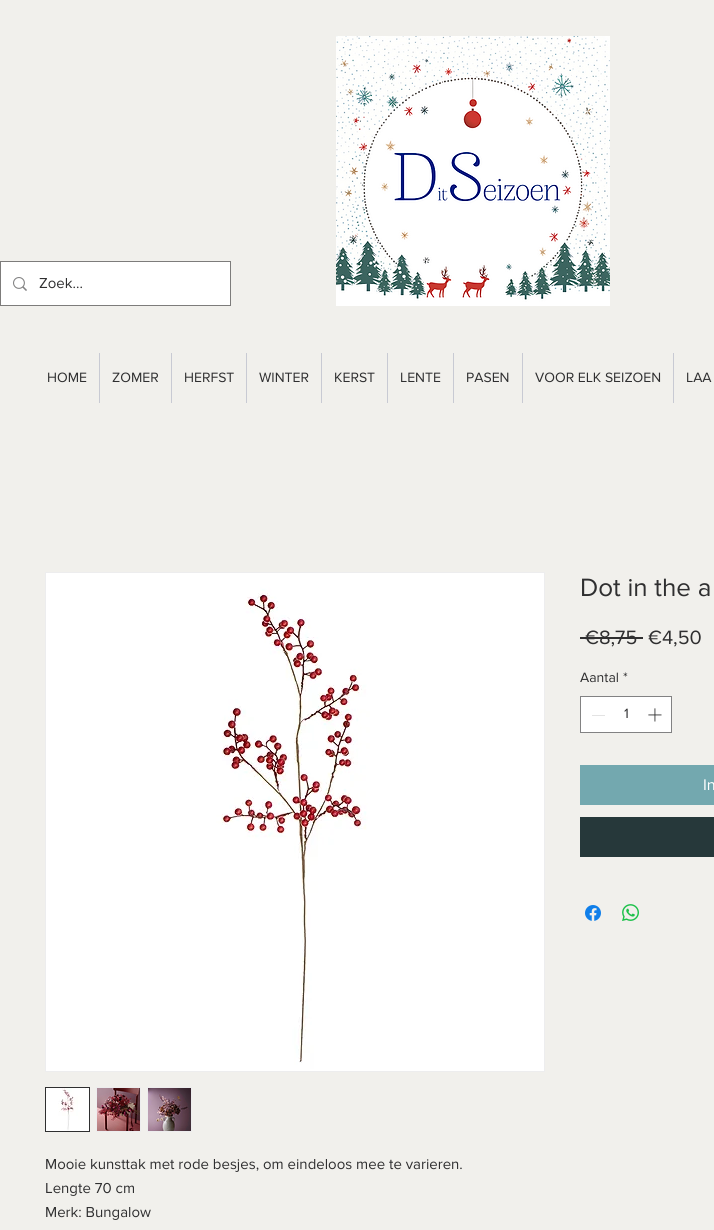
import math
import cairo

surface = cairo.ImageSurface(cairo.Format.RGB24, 714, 1230)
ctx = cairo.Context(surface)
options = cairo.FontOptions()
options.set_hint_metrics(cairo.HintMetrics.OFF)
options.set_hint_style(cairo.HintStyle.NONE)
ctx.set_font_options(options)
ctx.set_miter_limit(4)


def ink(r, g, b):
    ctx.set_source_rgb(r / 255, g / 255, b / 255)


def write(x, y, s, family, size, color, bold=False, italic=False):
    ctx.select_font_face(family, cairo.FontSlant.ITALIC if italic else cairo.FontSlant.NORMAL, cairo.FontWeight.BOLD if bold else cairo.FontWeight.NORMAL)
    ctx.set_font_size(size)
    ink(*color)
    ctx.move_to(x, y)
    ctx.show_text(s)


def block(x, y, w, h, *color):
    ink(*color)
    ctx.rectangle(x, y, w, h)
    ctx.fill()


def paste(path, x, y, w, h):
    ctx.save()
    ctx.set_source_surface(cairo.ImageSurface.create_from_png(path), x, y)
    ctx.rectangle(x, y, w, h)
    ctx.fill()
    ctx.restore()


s1 = dict(family="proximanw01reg", size=15, color=(47, 47, 48))
s2 = dict(family="proximanw01reg", size=14, color=(47, 47, 48))
s3 = dict(family="proximanw01reg", size=26, color=(47, 47, 48))
s4 = dict(family="proximanw01reg", size=20, color=(47, 47, 48))
s5 = dict(family="proximanw01reg", size=16, color=(255, 255, 255))

ink(241, 240, 236)
ctx.paint()
ctx.rectangle(0.5, 261.5, 230, 44)
ink(125, 124, 123)
ctx.set_line_width(1)
ctx.stroke()
block(1, 262, 229, 43, 255, 255, 255)
paste("pic1.png", 13, 277, 14, 14)
write(39, 288, "Zoek...", **s1)
paste("pic2.png", 336, 36, 274, 270)
write(47, 382, "HOME", **s2)
block(99, 353, 1, 50, 200, 202, 211)
write(112, 382, "ZOMER", **s2)
block(171, 353, 1, 50, 200, 202, 211)
write(184, 382, "HERFST", **s2)
block(246, 353, 1, 50, 200, 202, 211)
write(259, 382, "WINTER", **s2)
block(321, 353, 1, 50, 200, 202, 211)
write(334, 382, "KERST", **s2)
block(387, 353, 1, 50, 200, 202, 211)
write(400, 382, "LENTE", **s2)
block(453, 353, 1, 50, 200, 202, 211)
write(466, 382, "PASEN", **s2)
block(522, 353, 1, 50, 200, 202, 211)
write(535, 382, "VOOR ELK SEIZOEN", **s2)
block(673, 353, 1, 50, 200, 202, 211)
write(686, 382, "LAA", **s2)
write(580, 596, "Dot in the a", **s3)
write(585, 644, "€8,75", **s4)
block(580, 637, 63, 2, 47, 47, 48)
write(648, 644, "€4,50", **s4)
write(580, 682, "Aantal", **s2)
write(623, 682, "*", **s2)
ink(255, 255, 255)
ctx.rectangle(580.5, 696.5, 91, 36)
ctx.fill_preserve()
ink(130, 130, 131)
ctx.stroke()
block(592, 715, 13, 1, 227, 227, 227)
write(624, 718, "1", **s2)
paste("pic3.png", 648, 708, 14, 14)
block(580, 765, 134, 40, 115, 168, 175)
write(703, 790, "In", **s5)
block(580, 817, 134, 40, 38, 56, 58)
paste("pic4.png", 585, 905, 16, 16)
paste("pic5.png", 622, 904, 17, 17)
ctx.rectangle(45.5, 572.5, 499, 499)
ink(237, 237, 238)
ctx.stroke()
paste("pic6.png", 46, 573, 498, 498)
ctx.rectangle(45.5, 1087.5, 44, 44)
ink(47, 47, 48)
ctx.stroke()
paste("pic7.png", 46, 1088, 43, 43)
block(96, 1087, 45, 45, 237, 237, 238)
paste("pic8.png", 97, 1088, 43, 43)
block(147, 1087, 45, 45, 237, 237, 238)
paste("pic9.png", 148, 1088, 43, 43)
write(45, 1169, "Mooie kunsttak met rode besjes, om eindeloos mee te varieren.", **s1)
write(45, 1193, "Lengte 70 cm", **s1)
write(45, 1217, "Merk: Bungalow", **s1)
surface.write_to_png("screenshot.png")
